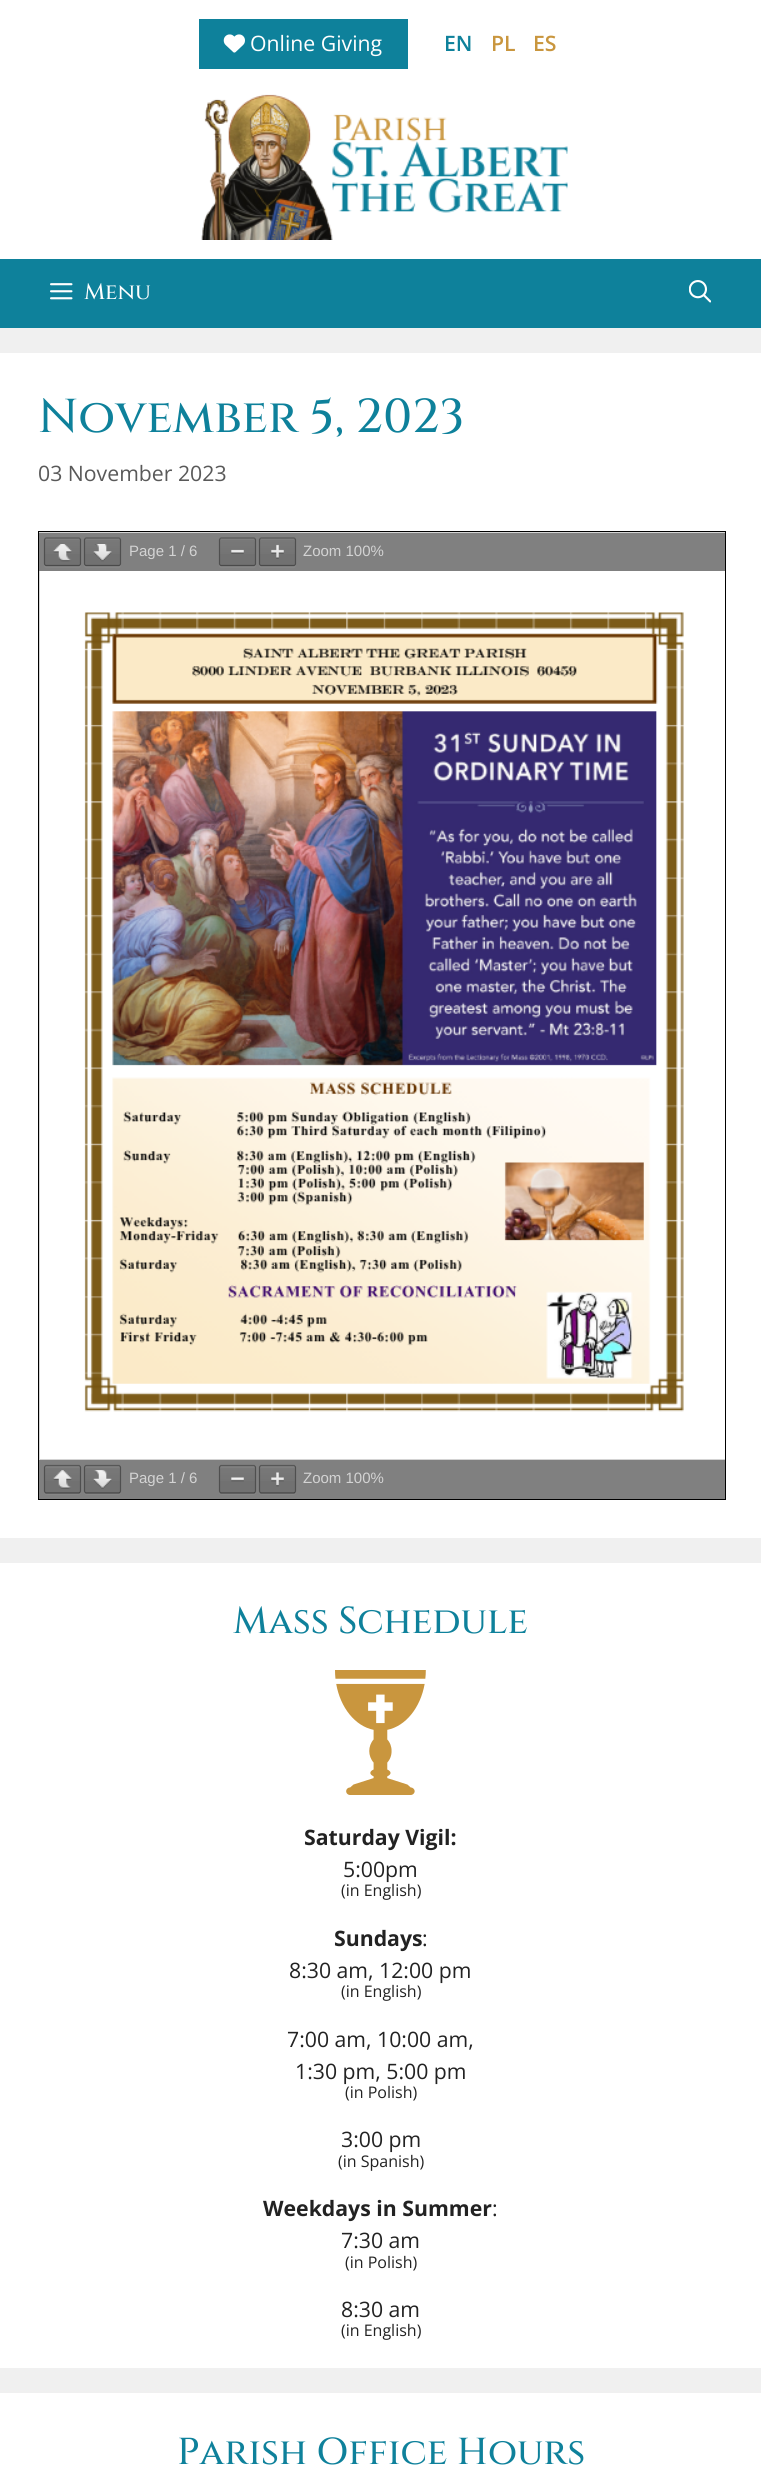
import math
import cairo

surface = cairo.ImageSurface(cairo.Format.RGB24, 761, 2472)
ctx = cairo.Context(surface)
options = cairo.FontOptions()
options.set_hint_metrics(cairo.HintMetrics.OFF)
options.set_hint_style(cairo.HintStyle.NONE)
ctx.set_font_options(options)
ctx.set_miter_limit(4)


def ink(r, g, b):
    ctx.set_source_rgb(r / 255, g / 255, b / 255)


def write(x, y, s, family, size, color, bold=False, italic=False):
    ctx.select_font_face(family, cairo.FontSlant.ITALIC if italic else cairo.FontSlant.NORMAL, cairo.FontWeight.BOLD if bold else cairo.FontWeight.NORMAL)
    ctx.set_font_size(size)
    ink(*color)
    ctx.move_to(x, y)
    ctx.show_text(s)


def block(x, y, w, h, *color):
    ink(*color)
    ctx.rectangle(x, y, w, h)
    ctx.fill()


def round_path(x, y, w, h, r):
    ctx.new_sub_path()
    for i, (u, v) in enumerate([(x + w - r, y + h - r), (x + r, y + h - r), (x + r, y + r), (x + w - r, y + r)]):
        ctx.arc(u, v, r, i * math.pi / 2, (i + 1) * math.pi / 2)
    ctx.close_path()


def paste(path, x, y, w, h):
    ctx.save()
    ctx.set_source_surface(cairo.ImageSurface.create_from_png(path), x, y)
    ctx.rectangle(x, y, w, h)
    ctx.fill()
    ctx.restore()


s1 = dict(family="Open Sans", size=21.25, color=(255, 255, 255))
s2 = dict(family="Open Sans SemiBold", size=21.25, color=(14, 129, 155))
s3 = dict(family="Open Sans SemiBold", size=21.25, color=(201, 150, 62))
s4 = dict(family="Cinzel Medium", size=22.5, color=(255, 255, 255))
s5 = dict(family="Cinzel Medium", size=47.5, color=(14, 129, 155))
s6 = dict(family="Open Sans", size=21.25, color=(89, 89, 89))
s7 = dict(family="Liberation Sans", size=15, color=(211, 211, 211))
s8 = dict(family="Cinzel Medium", size=37.5, color=(14, 129, 155))
s9 = dict(family="Open Sans", size=21.25, color=(34, 34, 34), bold=True)
s10 = dict(family="Open Sans", size=21.25, color=(34, 34, 34))
s11 = dict(family="Open Sans", size=16, color=(34, 34, 34))

ink(240, 240, 240)
ctx.paint()
block(0, 0, 761, 259, 255, 255, 255)
block(199, 19, 209, 50, 14, 129, 155)
paste("pic1.png", 223, 34, 22, 19)
write(250, 51, "Online Giving", **s1)
write(444, 51, "EN", **s2)
write(491, 51, "PL", **s3)
write(533, 51, "ES", **s3)
paste("pic2.png", 201, 94, 367, 146)
block(0, 259, 761, 69, 14, 129, 155)
paste("pic3.png", 50, 283, 23, 17)
write(84, 299, "Menu", **s4)
paste("pic4.png", 689, 280, 22, 23)
block(0, 353, 761, 1185, 255, 255, 255)
write(38, 432, "November 5, 2023", **s5)
write(38, 481, "03 November 2023", **s6)
block(39, 532, 686, 928, 211, 211, 211)
ctx.rectangle(38.5, 531.5, 687, 968)
ink(0, 0, 0)
ctx.set_line_width(1)
ctx.stroke()
block(39, 533, 686, 38, 128, 128, 128)
ink(134, 134, 134)
ctx.new_path()
ctx.move_to(44, 565)
ctx.curve_to(44, 569.5, 48.5, 568, 52, 568)
ctx.line_to(73, 568)
ctx.curve_to(76.5, 568, 81, 569.5, 81, 565)
ctx.curve_to(80.5, 565.5, 79.5, 566, 79, 566)
ctx.line_to(46, 566)
ctx.curve_to(45.5, 566, 44.5, 565.5, 44, 565)
ctx.close_path()
ctx.fill()
ink(113, 113, 113)
round_path(45, 539, 35, 26, 1)
ctx.fill()
gradient = cairo.LinearGradient(63, 539, 63, 565)
gradient.add_color_stop_rgba(0, 1, 1, 1, 0.05)
gradient.add_color_stop_rgba(1, 1, 1, 1, 0)
ctx.set_source(gradient)
ctx.rectangle(45, 539, 35, 15)
ctx.fill()
ink(127, 127, 127)
ctx.new_path()
ctx.move_to(46, 540)
ctx.line_to(79, 540)
ctx.line_to(80, 541)
ctx.curve_to(80, 537.5, 77, 539, 73.5, 539)
ctx.line_to(51.5, 539)
ctx.curve_to(48, 539, 45, 537.5, 45, 541)
ctx.close_path()
ctx.fill()
ctx.new_path()
ctx.move_to(45, 538.5)
ctx.line_to(46, 538)
ctx.line_to(79, 538)
ctx.line_to(80, 538.5)
ink(87, 87, 87)
ctx.set_line_width(1.2)
ctx.stroke()
ctx.new_path()
ctx.move_to(80, 538.5)
ctx.line_to(80.5, 540)
ctx.line_to(80.5, 564)
ctx.line_to(80, 565)
ink(79, 79, 79)
ctx.stroke()
ctx.new_path()
ctx.move_to(80, 565)
ctx.line_to(79, 565.5)
ctx.line_to(46, 565.5)
ctx.line_to(45, 565)
ink(74, 74, 74)
ctx.stroke()
ctx.new_path()
ctx.move_to(45, 565)
ctx.line_to(44.5, 564)
ctx.line_to(44.5, 540)
ctx.line_to(45, 538.5)
ink(79, 79, 79)
ctx.stroke()
paste("pic5.png", 53, 544, 19, 18)
ink(134, 134, 134)
ctx.new_path()
ctx.move_to(84, 565)
ctx.curve_to(84, 569.5, 88.5, 568, 92, 568)
ctx.line_to(113, 568)
ctx.curve_to(116.5, 568, 121, 569.5, 121, 565)
ctx.curve_to(120.5, 565.5, 119.5, 566, 119, 566)
ctx.line_to(86, 566)
ctx.curve_to(85.5, 566, 84.5, 565.5, 84, 565)
ctx.close_path()
ctx.fill()
ink(113, 113, 113)
round_path(85, 539, 35, 26, 1)
ctx.fill()
gradient = cairo.LinearGradient(103, 539, 103, 565)
gradient.add_color_stop_rgba(0, 1, 1, 1, 0.05)
gradient.add_color_stop_rgba(1, 1, 1, 1, 0)
ctx.set_source(gradient)
ctx.rectangle(85, 539, 35, 15)
ctx.fill()
ink(127, 127, 127)
ctx.new_path()
ctx.move_to(86, 540)
ctx.line_to(119, 540)
ctx.line_to(120, 541)
ctx.curve_to(120, 537.5, 117, 539, 113.5, 539)
ctx.line_to(91.5, 539)
ctx.curve_to(88, 539, 85, 537.5, 85, 541)
ctx.close_path()
ctx.fill()
ctx.new_path()
ctx.move_to(85, 538.5)
ctx.line_to(86, 538)
ctx.line_to(119, 538)
ctx.line_to(120, 538.5)
ink(87, 87, 87)
ctx.stroke()
ctx.new_path()
ctx.move_to(120, 538.5)
ctx.line_to(120.5, 540)
ctx.line_to(120.5, 564)
ctx.line_to(120, 565)
ink(79, 79, 79)
ctx.stroke()
ctx.new_path()
ctx.move_to(120, 565)
ctx.line_to(119, 565.5)
ctx.line_to(86, 565.5)
ctx.line_to(85, 565)
ink(74, 74, 74)
ctx.stroke()
ctx.new_path()
ctx.move_to(85, 565)
ctx.line_to(84.5, 564)
ctx.line_to(84.5, 540)
ctx.line_to(85, 538.5)
ink(79, 79, 79)
ctx.stroke()
paste("pic6.png", 93, 544, 19, 18)
write(129, 556, "Page 1 / 6", **s7)
ink(134, 134, 134)
ctx.new_path()
ctx.move_to(219, 565)
ctx.curve_to(219, 569.5, 223.5, 568, 227, 568)
ctx.line_to(248, 568)
ctx.curve_to(251.5, 568, 256, 569.5, 256, 565)
ctx.curve_to(255.5, 565.5, 254.5, 566, 254, 566)
ctx.line_to(221, 566)
ctx.curve_to(220.5, 566, 219.5, 565.5, 219, 565)
ctx.close_path()
ctx.fill()
ink(113, 113, 113)
round_path(220, 539, 35, 26, 1)
ctx.fill()
gradient = cairo.LinearGradient(238, 539, 238, 565)
gradient.add_color_stop_rgba(0, 1, 1, 1, 0.05)
gradient.add_color_stop_rgba(1, 1, 1, 1, 0)
ctx.set_source(gradient)
ctx.rectangle(220, 539, 35, 15)
ctx.fill()
ink(127, 127, 127)
ctx.new_path()
ctx.move_to(221, 540)
ctx.line_to(254, 540)
ctx.line_to(255, 541)
ctx.curve_to(255, 537.5, 252, 539, 248.5, 539)
ctx.line_to(226.5, 539)
ctx.curve_to(223, 539, 220, 537.5, 220, 541)
ctx.close_path()
ctx.fill()
ctx.new_path()
ctx.move_to(220, 538.5)
ctx.line_to(221, 538)
ctx.line_to(254, 538)
ctx.line_to(255, 538.5)
ink(87, 87, 87)
ctx.stroke()
ctx.new_path()
ctx.move_to(255, 538.5)
ctx.line_to(255.5, 540)
ctx.line_to(255.5, 564)
ctx.line_to(255, 565)
ink(79, 79, 79)
ctx.stroke()
ctx.new_path()
ctx.move_to(255, 565)
ctx.line_to(254, 565.5)
ctx.line_to(221, 565.5)
ctx.line_to(220, 565)
ink(74, 74, 74)
ctx.stroke()
ctx.new_path()
ctx.move_to(220, 565)
ctx.line_to(219.5, 564)
ctx.line_to(219.5, 540)
ctx.line_to(220, 538.5)
ink(79, 79, 79)
ctx.stroke()
paste("pic7.png", 231, 549, 13, 5)
ink(134, 134, 134)
ctx.new_path()
ctx.move_to(259, 565)
ctx.curve_to(259, 569.5, 263.5, 568, 267, 568)
ctx.line_to(288, 568)
ctx.curve_to(291.5, 568, 296, 569.5, 296, 565)
ctx.curve_to(295.5, 565.5, 294.5, 566, 294, 566)
ctx.line_to(261, 566)
ctx.curve_to(260.5, 566, 259.5, 565.5, 259, 565)
ctx.close_path()
ctx.fill()
ink(113, 113, 113)
round_path(260, 539, 35, 26, 1)
ctx.fill()
gradient = cairo.LinearGradient(278, 539, 278, 565)
gradient.add_color_stop_rgba(0, 1, 1, 1, 0.05)
gradient.add_color_stop_rgba(1, 1, 1, 1, 0)
ctx.set_source(gradient)
ctx.rectangle(260, 539, 35, 15)
ctx.fill()
ink(127, 127, 127)
ctx.new_path()
ctx.move_to(261, 540)
ctx.line_to(294, 540)
ctx.line_to(295, 541)
ctx.curve_to(295, 537.5, 292, 539, 288.5, 539)
ctx.line_to(266.5, 539)
ctx.curve_to(263, 539, 260, 537.5, 260, 541)
ctx.close_path()
ctx.fill()
ctx.new_path()
ctx.move_to(260, 538.5)
ctx.line_to(261, 538)
ctx.line_to(294, 538)
ctx.line_to(295, 538.5)
ink(87, 87, 87)
ctx.stroke()
ctx.new_path()
ctx.move_to(295, 538.5)
ctx.line_to(295.5, 540)
ctx.line_to(295.5, 564)
ctx.line_to(295, 565)
ink(79, 79, 79)
ctx.stroke()
ctx.new_path()
ctx.move_to(295, 565)
ctx.line_to(294, 565.5)
ctx.line_to(261, 565.5)
ctx.line_to(260, 565)
ink(74, 74, 74)
ctx.stroke()
ctx.new_path()
ctx.move_to(260, 565)
ctx.line_to(259.5, 564)
ctx.line_to(259.5, 540)
ctx.line_to(260, 538.5)
ink(79, 79, 79)
ctx.stroke()
paste("pic8.png", 271, 544, 13, 15)
write(303, 556, "Zoom 100%", **s7)
block(40, 571, 685, 888, 255, 255, 255)
paste("pic9.png", 84, 612, 600, 800)
block(39, 1460, 686, 39, 128, 128, 128)
ink(134, 134, 134)
ctx.new_path()
ctx.move_to(44, 1492.5)
ctx.curve_to(44, 1496, 50, 1495, 52, 1495)
ctx.line_to(73, 1495)
ctx.curve_to(75, 1495, 81, 1496, 81, 1492.5)
ctx.curve_to(80.5, 1493, 79.5, 1494, 79, 1494)
ctx.line_to(46, 1494)
ctx.curve_to(45.5, 1494, 44.5, 1493, 44, 1492.5)
ctx.close_path()
ctx.fill()
ink(113, 113, 113)
round_path(45, 1466, 35, 27, 1)
ctx.fill()
gradient = cairo.LinearGradient(63, 1466, 63, 1493)
gradient.add_color_stop_rgba(0, 1, 1, 1, 0.05)
gradient.add_color_stop_rgba(1, 1, 1, 1, 0)
ctx.set_source(gradient)
ctx.rectangle(45, 1466, 35, 15)
ctx.fill()
ink(127, 127, 127)
ctx.new_path()
ctx.move_to(46, 1468)
ctx.line_to(79, 1468)
ctx.curve_to(79, 1468, 80, 1468, 80, 1469)
ctx.curve_to(80, 1464.5, 79, 1466, 73.5, 1466)
ctx.line_to(51.5, 1466)
ctx.curve_to(46, 1466, 45, 1464.5, 45, 1469)
ctx.curve_to(45, 1468, 46, 1468, 46, 1468)
ctx.close_path()
ctx.fill()
ctx.new_path()
ctx.move_to(45, 1466)
ctx.line_to(46, 1465.5)
ctx.line_to(79, 1465.5)
ctx.line_to(80, 1466)
ink(87, 87, 87)
ctx.stroke()
ctx.new_path()
ctx.move_to(80, 1466)
ctx.line_to(80.5, 1467.5)
ctx.line_to(80.5, 1491)
ctx.line_to(80, 1492.5)
ink(79, 79, 79)
ctx.stroke()
ctx.new_path()
ctx.move_to(80, 1492.5)
ctx.line_to(79, 1493)
ctx.line_to(46, 1493)
ctx.line_to(45, 1492.5)
ctx.set_source_rgba(0, 0, 0, 0.42)
ctx.stroke()
ctx.new_path()
ctx.move_to(45, 1492.5)
ctx.line_to(44.5, 1491)
ctx.line_to(44.5, 1467.5)
ctx.line_to(45, 1466)
ink(79, 79, 79)
ctx.stroke()
paste("pic10.png", 53, 1470, 19, 19)
ink(134, 134, 134)
ctx.new_path()
ctx.move_to(84, 1492.5)
ctx.curve_to(84, 1496, 90, 1495, 92, 1495)
ctx.line_to(113, 1495)
ctx.curve_to(115, 1495, 121, 1496, 121, 1492.5)
ctx.curve_to(120.5, 1493, 119.5, 1494, 119, 1494)
ctx.line_to(86, 1494)
ctx.curve_to(85.5, 1494, 84.5, 1493, 84, 1492.5)
ctx.close_path()
ctx.fill()
ink(113, 113, 113)
round_path(85, 1466, 35, 27, 1)
ctx.fill()
gradient = cairo.LinearGradient(103, 1466, 103, 1493)
gradient.add_color_stop_rgba(0, 1, 1, 1, 0.05)
gradient.add_color_stop_rgba(1, 1, 1, 1, 0)
ctx.set_source(gradient)
ctx.rectangle(85, 1466, 35, 15)
ctx.fill()
ink(127, 127, 127)
ctx.new_path()
ctx.move_to(86, 1468)
ctx.line_to(119, 1468)
ctx.curve_to(119, 1468, 120, 1468, 120, 1469)
ctx.curve_to(120, 1464.5, 119, 1466, 113.5, 1466)
ctx.line_to(91.5, 1466)
ctx.curve_to(86, 1466, 85, 1464.5, 85, 1469)
ctx.curve_to(85, 1468, 86, 1468, 86, 1468)
ctx.close_path()
ctx.fill()
ctx.new_path()
ctx.move_to(85, 1466)
ctx.line_to(86, 1465.5)
ctx.line_to(119, 1465.5)
ctx.line_to(120, 1466)
ink(87, 87, 87)
ctx.stroke()
ctx.new_path()
ctx.move_to(120, 1466)
ctx.line_to(120.5, 1467.5)
ctx.line_to(120.5, 1491)
ctx.line_to(120, 1492.5)
ink(79, 79, 79)
ctx.stroke()
ctx.new_path()
ctx.move_to(120, 1492.5)
ctx.line_to(119, 1493)
ctx.line_to(86, 1493)
ctx.line_to(85, 1492.5)
ctx.set_source_rgba(0, 0, 0, 0.42)
ctx.stroke()
ctx.new_path()
ctx.move_to(85, 1492.5)
ctx.line_to(84.5, 1491)
ctx.line_to(84.5, 1467.5)
ctx.line_to(85, 1466)
ink(79, 79, 79)
ctx.stroke()
paste("pic11.png", 93, 1470, 19, 19)
write(129, 1483, "Page 1 / 6", **s7)
ink(134, 134, 134)
ctx.new_path()
ctx.move_to(219, 1492.5)
ctx.curve_to(219, 1496, 225, 1495, 227, 1495)
ctx.line_to(248, 1495)
ctx.curve_to(250, 1495, 256, 1496, 256, 1492.5)
ctx.curve_to(255.5, 1493, 254.5, 1494, 254, 1494)
ctx.line_to(221, 1494)
ctx.curve_to(220.5, 1494, 219.5, 1493, 219, 1492.5)
ctx.close_path()
ctx.fill()
ink(113, 113, 113)
round_path(220, 1466, 35, 27, 1)
ctx.fill()
gradient = cairo.LinearGradient(238, 1466, 238, 1493)
gradient.add_color_stop_rgba(0, 1, 1, 1, 0.05)
gradient.add_color_stop_rgba(1, 1, 1, 1, 0)
ctx.set_source(gradient)
ctx.rectangle(220, 1466, 35, 15)
ctx.fill()
ink(127, 127, 127)
ctx.new_path()
ctx.move_to(221, 1468)
ctx.line_to(254, 1468)
ctx.curve_to(254, 1468, 255, 1468, 255, 1469)
ctx.curve_to(255, 1464.5, 254, 1466, 248.5, 1466)
ctx.line_to(226.5, 1466)
ctx.curve_to(221, 1466, 220, 1464.5, 220, 1469)
ctx.curve_to(220, 1468, 221, 1468, 221, 1468)
ctx.close_path()
ctx.fill()
ctx.new_path()
ctx.move_to(220, 1466)
ctx.line_to(221, 1465.5)
ctx.line_to(254, 1465.5)
ctx.line_to(255, 1466)
ink(87, 87, 87)
ctx.stroke()
ctx.new_path()
ctx.move_to(255, 1466)
ctx.line_to(255.5, 1467.5)
ctx.line_to(255.5, 1491)
ctx.line_to(255, 1492.5)
ink(79, 79, 79)
ctx.stroke()
ctx.new_path()
ctx.move_to(255, 1492.5)
ctx.line_to(254, 1493)
ctx.line_to(221, 1493)
ctx.line_to(220, 1492.5)
ctx.set_source_rgba(0, 0, 0, 0.42)
ctx.stroke()
ctx.new_path()
ctx.move_to(220, 1492.5)
ctx.line_to(219.5, 1491)
ctx.line_to(219.5, 1467.5)
ctx.line_to(220, 1466)
ink(79, 79, 79)
ctx.stroke()
paste("pic12.png", 231, 1477, 13, 5)
ink(134, 134, 134)
ctx.new_path()
ctx.move_to(259, 1492.5)
ctx.curve_to(259, 1496, 265, 1495, 267, 1495)
ctx.line_to(288, 1495)
ctx.curve_to(290, 1495, 296, 1496, 296, 1492.5)
ctx.curve_to(295.5, 1493, 294.5, 1494, 294, 1494)
ctx.line_to(261, 1494)
ctx.curve_to(260.5, 1494, 259.5, 1493, 259, 1492.5)
ctx.close_path()
ctx.fill()
ink(113, 113, 113)
round_path(260, 1466, 35, 27, 1)
ctx.fill()
gradient = cairo.LinearGradient(278, 1466, 278, 1493)
gradient.add_color_stop_rgba(0, 1, 1, 1, 0.05)
gradient.add_color_stop_rgba(1, 1, 1, 1, 0)
ctx.set_source(gradient)
ctx.rectangle(260, 1466, 35, 15)
ctx.fill()
ink(127, 127, 127)
ctx.new_path()
ctx.move_to(261, 1468)
ctx.line_to(294, 1468)
ctx.curve_to(294, 1468, 295, 1468, 295, 1469)
ctx.curve_to(295, 1464.5, 294, 1466, 288.5, 1466)
ctx.line_to(266.5, 1466)
ctx.curve_to(261, 1466, 260, 1464.5, 260, 1469)
ctx.curve_to(260, 1468, 261, 1468, 261, 1468)
ctx.close_path()
ctx.fill()
ctx.new_path()
ctx.move_to(260, 1466)
ctx.line_to(261, 1465.5)
ctx.line_to(294, 1465.5)
ctx.line_to(295, 1466)
ink(87, 87, 87)
ctx.stroke()
ctx.new_path()
ctx.move_to(295, 1466)
ctx.line_to(295.5, 1467.5)
ctx.line_to(295.5, 1491)
ctx.line_to(295, 1492.5)
ink(79, 79, 79)
ctx.stroke()
ctx.new_path()
ctx.move_to(295, 1492.5)
ctx.line_to(294, 1493)
ctx.line_to(261, 1493)
ctx.line_to(260, 1492.5)
ctx.set_source_rgba(0, 0, 0, 0.42)
ctx.stroke()
ctx.new_path()
ctx.move_to(260, 1492.5)
ctx.line_to(259.5, 1491)
ctx.line_to(259.5, 1467.5)
ctx.line_to(260, 1466)
ink(79, 79, 79)
ctx.stroke()
paste("pic13.png", 271, 1472, 13, 15)
write(303, 1483, "Zoom 100%", **s7)
block(0, 1563, 761, 805, 255, 255, 255)
write(233, 1633, "Mass Schedule", **s8)
paste("pic14.png", 335, 1670, 91, 125)
write(304, 1845, "Saturday Vigil:", **s9)
write(343, 1877, "5:00pm", **s10)
write(341, 1896, "(in English)", **s11)
write(334, 1946, "Sundays", **s9)
write(422, 1946, ":", **s10)
write(289, 1978, "8:30 am, 12:00 pm", **s10)
write(341, 1997, "(in English)", **s11)
write(287, 2047, "7:00 am, 10:00 am,", **s10)
write(295, 2079, "1:30 pm, 5:00 pm", **s10)
write(345, 2098, "(in Polish)", **s11)
write(341, 2147, "3:00 pm", **s10)
write(338, 2167, "(in Spanish)", **s11)
write(263, 2216, "Weekdays in Summer", **s9)
write(492, 2216, ":", **s10)
write(341, 2248, "7:30 am", **s10)
write(345, 2268, "(in Polish)", **s11)
write(341, 2317, "8:30 am", **s10)
write(341, 2336, "(in English)", **s11)
block(0, 2393, 761, 79, 255, 255, 255)
write(177, 2464, "Parish Office Hours", **s8)
surface.write_to_png("screenshot.png")
